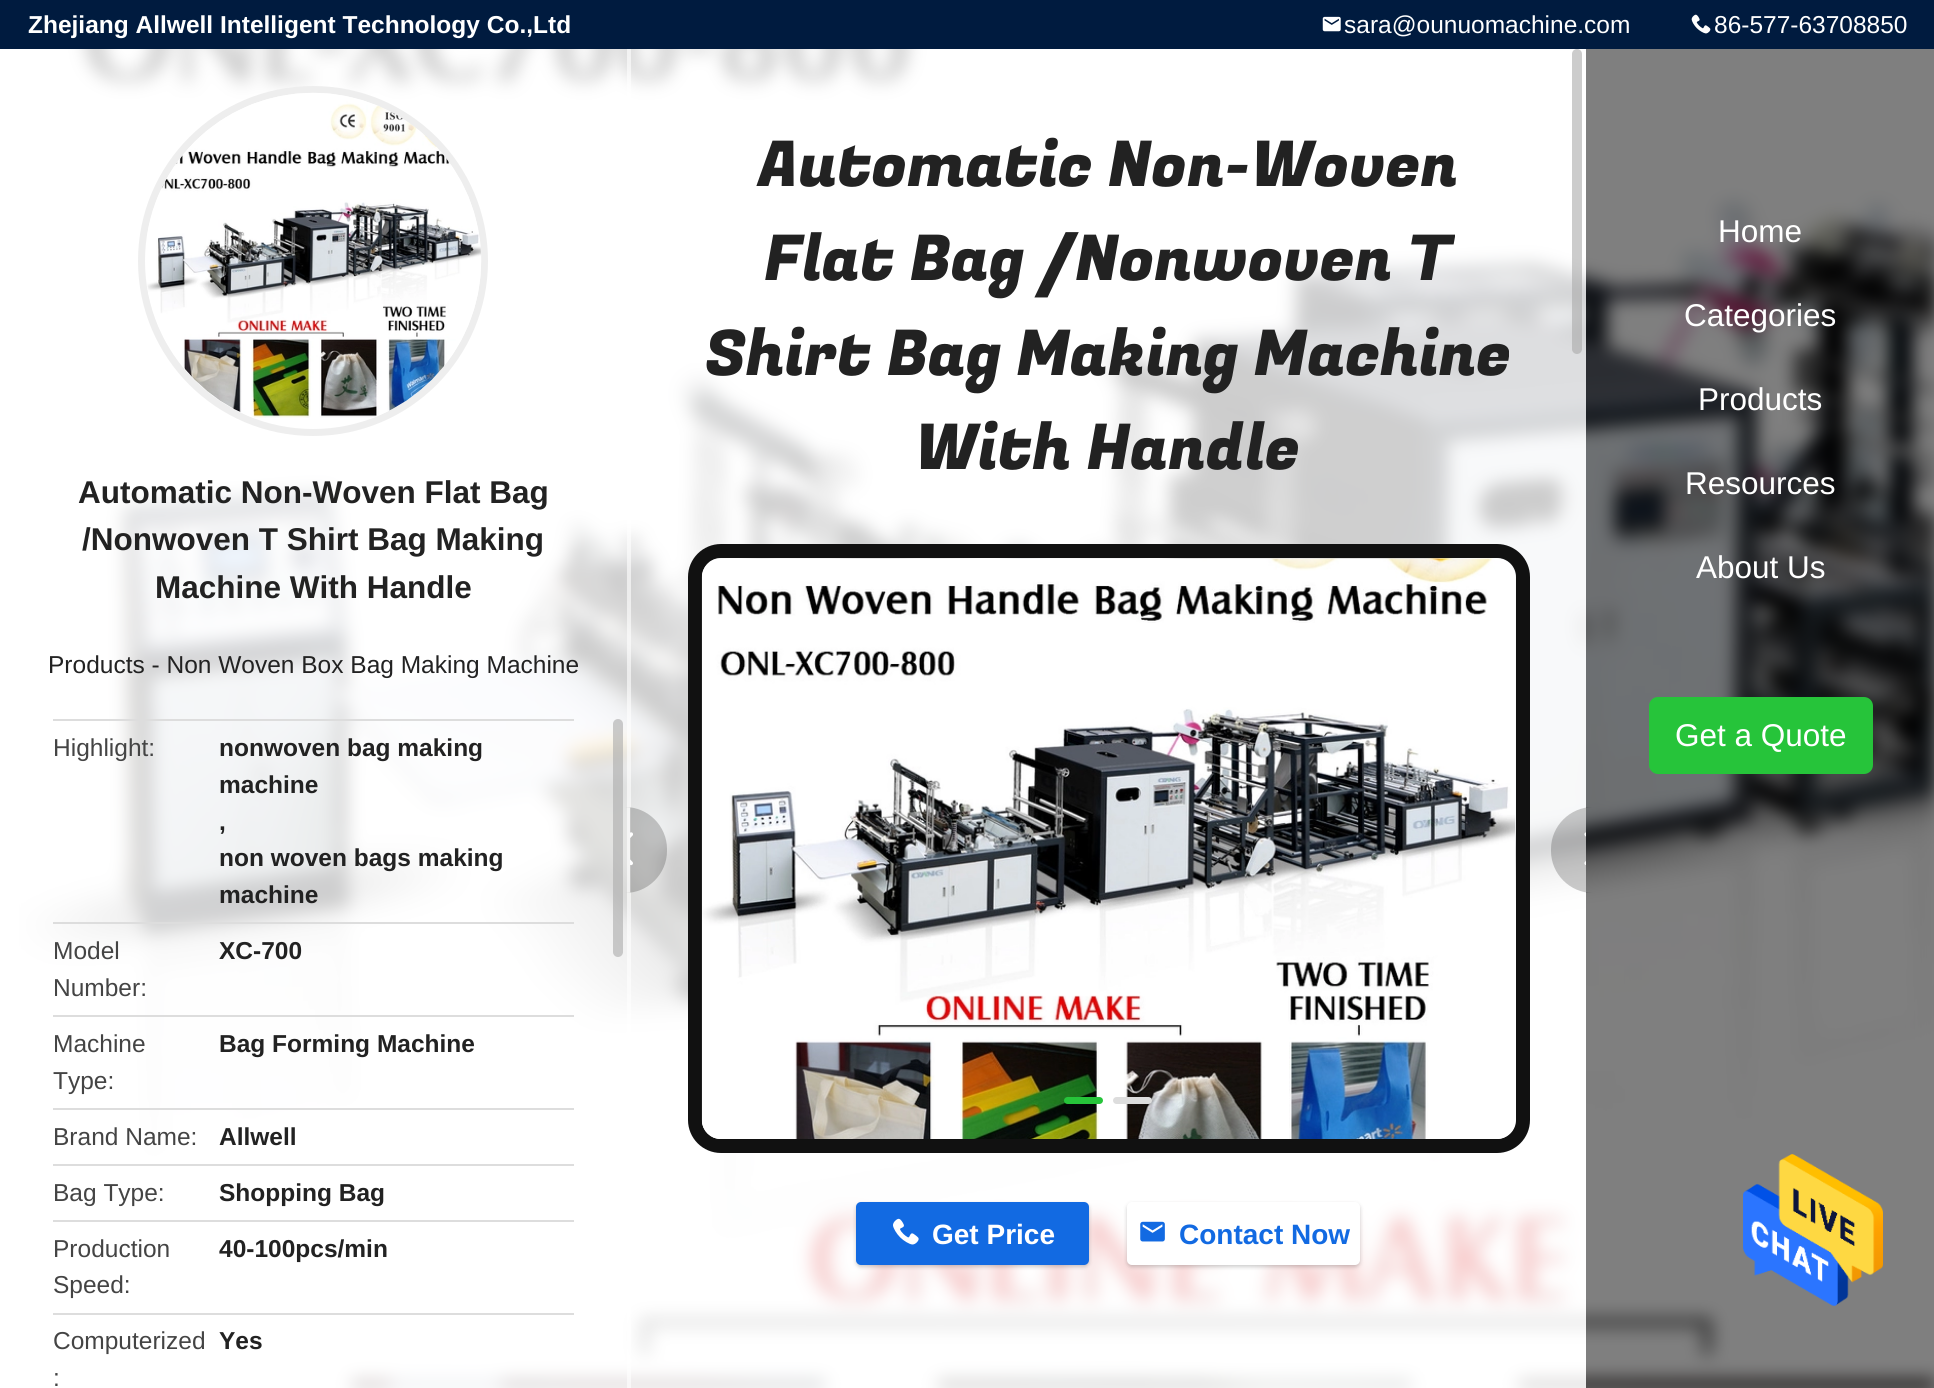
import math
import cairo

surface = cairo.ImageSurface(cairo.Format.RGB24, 1934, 1388)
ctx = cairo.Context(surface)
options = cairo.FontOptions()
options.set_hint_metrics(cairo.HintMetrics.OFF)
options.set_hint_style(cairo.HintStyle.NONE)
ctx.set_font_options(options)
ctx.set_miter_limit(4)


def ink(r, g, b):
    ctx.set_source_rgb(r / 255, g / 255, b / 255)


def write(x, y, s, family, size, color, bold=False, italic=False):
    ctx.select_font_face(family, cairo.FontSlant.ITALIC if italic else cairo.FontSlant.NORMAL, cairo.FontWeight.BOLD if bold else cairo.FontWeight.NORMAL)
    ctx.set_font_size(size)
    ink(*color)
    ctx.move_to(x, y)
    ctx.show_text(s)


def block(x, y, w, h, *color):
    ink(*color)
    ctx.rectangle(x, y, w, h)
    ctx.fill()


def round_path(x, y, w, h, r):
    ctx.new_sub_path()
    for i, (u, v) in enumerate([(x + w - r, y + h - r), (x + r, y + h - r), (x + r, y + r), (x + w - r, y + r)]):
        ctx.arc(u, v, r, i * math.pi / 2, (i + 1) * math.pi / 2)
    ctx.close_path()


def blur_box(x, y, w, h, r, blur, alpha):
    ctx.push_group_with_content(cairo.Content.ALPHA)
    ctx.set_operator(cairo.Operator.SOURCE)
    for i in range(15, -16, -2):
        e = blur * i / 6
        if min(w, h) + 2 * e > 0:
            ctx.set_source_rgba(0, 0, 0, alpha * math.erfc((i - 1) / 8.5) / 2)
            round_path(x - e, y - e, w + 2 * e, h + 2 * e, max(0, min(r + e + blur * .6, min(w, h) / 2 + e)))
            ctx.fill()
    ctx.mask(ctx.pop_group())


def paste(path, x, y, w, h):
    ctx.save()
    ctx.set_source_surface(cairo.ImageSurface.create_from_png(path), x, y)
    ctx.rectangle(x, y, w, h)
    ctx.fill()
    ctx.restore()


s1 = dict(family="Liberation Sans", size=24.5, color=(255, 255, 255), bold=True)
s2 = dict(family="Liberation Sans", size=24.5, color=(255, 255, 255))
s3 = dict(family="Liberation Sans", size=31.5, color=(34, 34, 34), bold=True)
s4 = dict(family="Liberation Sans", size=24.5, color=(34, 34, 34))
s5 = dict(family="Liberation Sans", size=24.5, color=(68, 68, 68))
s6 = dict(family="Liberation Sans", size=24.5, color=(34, 34, 34), bold=True)
s7 = dict(family="Fugaz One", size=63, color=(34, 34, 34))
s8 = dict(family="Liberation Sans", size=28, color=(255, 255, 255), bold=True)
s9 = dict(family="Liberation Sans", size=28, color=(18, 106, 226), bold=True)
s10 = dict(family="Liberation Sans", size=31.5, color=(255, 255, 255))

ink(255, 255, 255)
ctx.paint()
block(0, 0, 1934, 49, 0, 27, 63)
write(28, 33, "Zhejiang Allwell Intelligent Technology Co.,Ltd", **s1)
paste("pic1.png", 1322, 16, 19, 16)
write(1344, 33, "sara@ounuomachine.com", **s2)
paste("pic2.png", 1691, 14, 20, 20)
write(1714, 33, "86-577-63708850", **s2)
paste("pic3.png", 19, 49, 1915, 1339)
ctx.set_source_rgba(1, 1, 1, 0.8)
ctx.rectangle(19, 49, 611, 1339)
ctx.fill()
ctx.set_source_rgba(1, 1, 1, 0.6)
ctx.rectangle(627, 49, 4, 1339)
ctx.fill()
ctx.arc(313, 261, 171.5, 0, 2 * math.pi)
ink(238, 238, 238)
ctx.set_line_width(7)
ctx.stroke()
paste("pic4.png", 147, 92, 335, 326)
write(78, 503, "Automatic Non-Woven Flat Bag", **s3)
write(82, 550, "/Nonwoven T Shirt Bag Making", **s3)
write(155, 598, "Machine With Handle", **s3)
write(48, 673, "Products - Non Woven Box Bag Making Machine", **s4)
block(53, 719, 521, 2, 221, 221, 221)
write(53, 756, "Highlight:", **s5)
write(219, 756, "nonwoven bag making", **s6)
write(219, 793, "machine", **s6)
write(219, 830, ",", **s6)
write(219, 866, "non woven bags making", **s6)
write(219, 903, "machine", **s6)
block(53, 922, 521, 2, 221, 221, 221)
write(53, 959, "Model", **s5)
write(53, 996, "Number:", **s5)
write(219, 959, "XC-700", **s6)
block(53, 1015, 521, 2, 221, 221, 221)
write(53, 1052, "Machine", **s5)
write(53, 1089, "Type:", **s5)
write(219, 1052, "Bag Forming Machine", **s6)
block(53, 1108, 521, 2, 221, 221, 221)
write(53, 1145, "Brand Name:", **s5)
write(219, 1145, "Allwell", **s6)
block(53, 1164, 521, 2, 221, 221, 221)
write(53, 1201, "Bag Type:", **s5)
write(219, 1201, "Shopping Bag", **s6)
block(53, 1220, 521, 2, 221, 221, 221)
write(53, 1257, "Production", **s5)
write(53, 1293, "Speed:", **s5)
write(219, 1257, "40-100pcs/min", **s6)
block(53, 1313, 521, 2, 221, 221, 221)
write(53, 1349, "Computerized", **s5)
write(53, 1386, ":", **s5)
write(219, 1349, "Yes", **s6)
ctx.set_source_rgba(0.667, 0.667, 0.667, 0.6)
round_path(613, 719, 10, 238, 5)
ctx.fill()
ctx.set_source_rgba(1, 1, 1, 0.8)
ctx.rectangle(630, 49, 956, 1339)
ctx.fill()
write(758, 186, "Automatic Non-Woven", **s7)
write(764, 280, "Flat Bag /Nonwoven T", **s7)
write(705, 375, "Shirt Bag Making Machine", **s7)
write(915, 469, "With Handle", **s7)
ctx.set_source_rgba(0.667, 0.667, 0.667, 0.6)
round_path(1572, 49, 10, 305, 5)
ctx.fill()
round_path(695, 551, 828, 595, 26)
ink(17, 17, 17)
ctx.set_line_width(14)
ctx.stroke()
paste("pic5.png", 701, 558, 815, 581)
ctx.set_source_rgba(0, 0, 0, 0.2)
ctx.new_path()
ctx.move_to(630, 807)
ctx.line_to(625, 807)
ctx.curve_to(648, 807, 667, 826, 667, 849)
ctx.line_to(667, 851)
ctx.curve_to(667, 874, 648, 893, 625, 893)
ctx.line_to(630, 893)
ctx.close_path()
ctx.fill()
paste("pic6.png", 630, 832, 3, 34)
ctx.new_path()
ctx.move_to(1593, 807)
ctx.line_to(1586, 807)
ctx.line_to(1586, 893)
ctx.line_to(1593, 893)
ctx.curve_to(1570, 893, 1551, 874, 1551, 851)
ctx.line_to(1551, 849)
ctx.curve_to(1551, 826, 1570, 807, 1593, 807)
ctx.close_path()
ctx.fill()
paste("pic7.png", 1584, 832, 2, 33)
ink(38, 196, 58)
round_path(1064, 1097, 39, 7, 3.5)
ctx.fill()
ink(221, 221, 221)
round_path(1113, 1097, 39, 7, 3.5)
ctx.fill()
ink(0, 0, 0)
blur_box(856, 1204, 233, 63, 5, 2, 0.2)
ink(18, 106, 226)
round_path(856, 1202, 233, 63, 5)
ctx.fill()
paste("pic8.png", 893, 1218, 26, 27)
write(932, 1244, "Get Price", **s8)
ink(0, 0, 0)
blur_box(1127, 1204, 233, 63, 5, 2, 0.2)
ink(255, 255, 255)
round_path(1127, 1202, 233, 63, 5)
ctx.fill()
paste("pic9.png", 1140, 1221, 25, 21)
write(1179, 1244, "Contact Now", **s9)
ctx.set_source_rgba(0, 0, 0, 0.5)
ctx.rectangle(1586, 49, 348, 1339)
ctx.fill()
write(1718, 242, "Home", **s10)
write(1684, 326, "Categories", **s10)
write(1698, 410, "Products", **s10)
write(1685, 494, "Resources", **s10)
write(1696, 578, "About Us", **s10)
ink(38, 196, 58)
round_path(1649, 697, 224, 77, 9)
ctx.fill()
write(1675, 746, "Get a Quote", **s10)
paste("pic10.png", 1743, 1154, 140, 152)
surface.write_to_png("screenshot.png")
